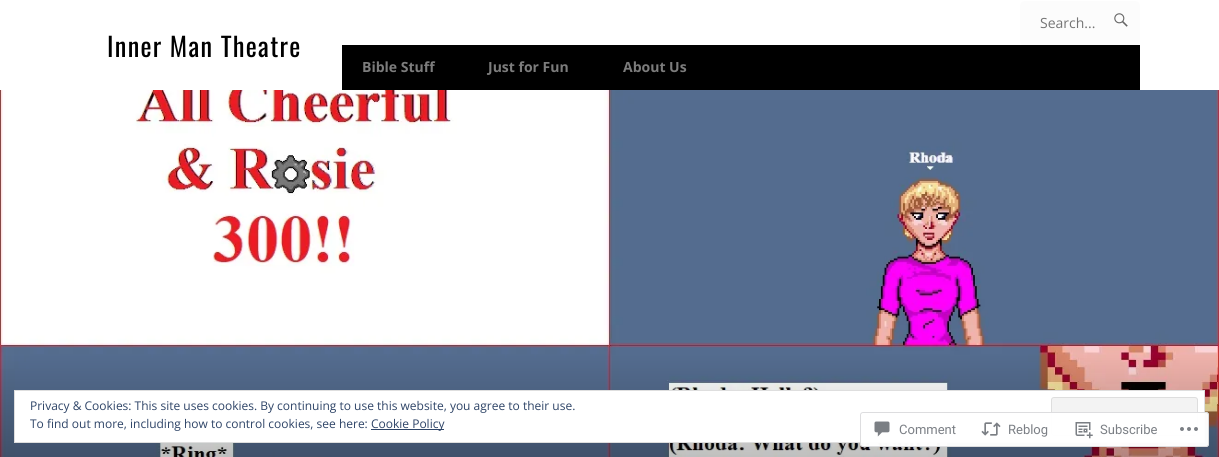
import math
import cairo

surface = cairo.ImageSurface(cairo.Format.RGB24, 1219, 457)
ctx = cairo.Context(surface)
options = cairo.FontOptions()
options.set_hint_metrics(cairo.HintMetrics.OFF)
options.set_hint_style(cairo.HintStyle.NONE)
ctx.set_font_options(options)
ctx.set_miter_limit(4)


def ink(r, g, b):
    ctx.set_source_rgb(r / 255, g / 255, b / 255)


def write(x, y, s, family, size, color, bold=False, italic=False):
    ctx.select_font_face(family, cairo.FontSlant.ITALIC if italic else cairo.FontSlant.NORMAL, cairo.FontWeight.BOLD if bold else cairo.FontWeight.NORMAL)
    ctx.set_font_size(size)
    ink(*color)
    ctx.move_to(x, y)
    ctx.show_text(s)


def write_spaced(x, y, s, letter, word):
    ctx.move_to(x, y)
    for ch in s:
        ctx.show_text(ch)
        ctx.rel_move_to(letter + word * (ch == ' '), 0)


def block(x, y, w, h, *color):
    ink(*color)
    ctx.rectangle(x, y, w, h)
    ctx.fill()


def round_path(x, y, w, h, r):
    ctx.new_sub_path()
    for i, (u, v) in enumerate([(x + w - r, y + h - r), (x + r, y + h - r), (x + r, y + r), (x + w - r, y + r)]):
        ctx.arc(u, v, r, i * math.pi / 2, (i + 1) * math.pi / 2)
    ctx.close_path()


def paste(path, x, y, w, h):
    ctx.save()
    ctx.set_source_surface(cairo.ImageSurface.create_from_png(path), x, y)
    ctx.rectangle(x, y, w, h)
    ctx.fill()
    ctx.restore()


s1 = dict(family="Open Sans", size=14, color=(117, 117, 117))
s2 = dict(family="Open Sans", size=14, color=(124, 124, 124), bold=True)
s3 = dict(family="Open Sans", size=12, color=(46, 68, 103))
s4 = dict(family="Roboto", size=13, color=(123, 127, 133))

ink(255, 255, 255)
ctx.paint()
ctx.select_font_face("Oswald")
ctx.set_font_size(26.25)
ink(0, 0, 0)
write_spaced(107, 57, "Inner Man Theatre", 1.3, 0)
ink(252, 252, 252)
round_path(1020, 1, 120, 45, 5)
ctx.fill()
write(1040, 28, "Search...", **s1)
paste("pic1.png", 1114, 13, 14, 14)
block(342, 45, 798, 45, 0, 0, 0)
write(362, 72, "Bible Stuff", **s2)
write(488, 72, "Just for Fun", **s2)
write(623, 72, "About Us", **s2)
paste("pic2.png", 0, 90, 1219, 367)
ink(255, 255, 255)
ctx.rectangle(14.5, 390.5, 1190, 52)
ctx.fill_preserve()
ink(222, 222, 222)
ctx.set_line_width(1)
ctx.stroke()
write(30, 410, "Privacy & Cookies: This site uses cookies. By continuing to use this website, you agree to their use.", **s3)
ink(243, 243, 243)
round_path(1051.5, 397.5, 146, 38, 2.5)
ctx.fill_preserve()
ink(222, 222, 222)
ctx.stroke()
write(30, 428, "To find out more, including how to control cookies, see here:", **s3)
block(371, 429, 73, 1, 46, 68, 103)
write(371, 428, "Cookie Policy", **s3)
ctx.set_source_rgba(1, 1, 1, 0.98)
round_path(860, 412, 349, 35, 3)
ctx.fill()
round_path(860.5, 412.5, 348, 34, 2.5)
ctx.set_source_rgba(0.863, 0.863, 0.871, 0.98)
ctx.stroke()
paste("pic3.png", 874, 421, 16, 16)
write(899, 434, "Comment", **s4)
paste("pic4.png", 981, 422, 20, 14)
write(1008, 434, "Reblog", **s4)
paste("pic5.png", 1075, 422, 18, 17)
write(1100, 434, "Subscribe", **s4)
paste("pic6.png", 1180, 427, 18, 4)
surface.write_to_png("screenshot.png")
